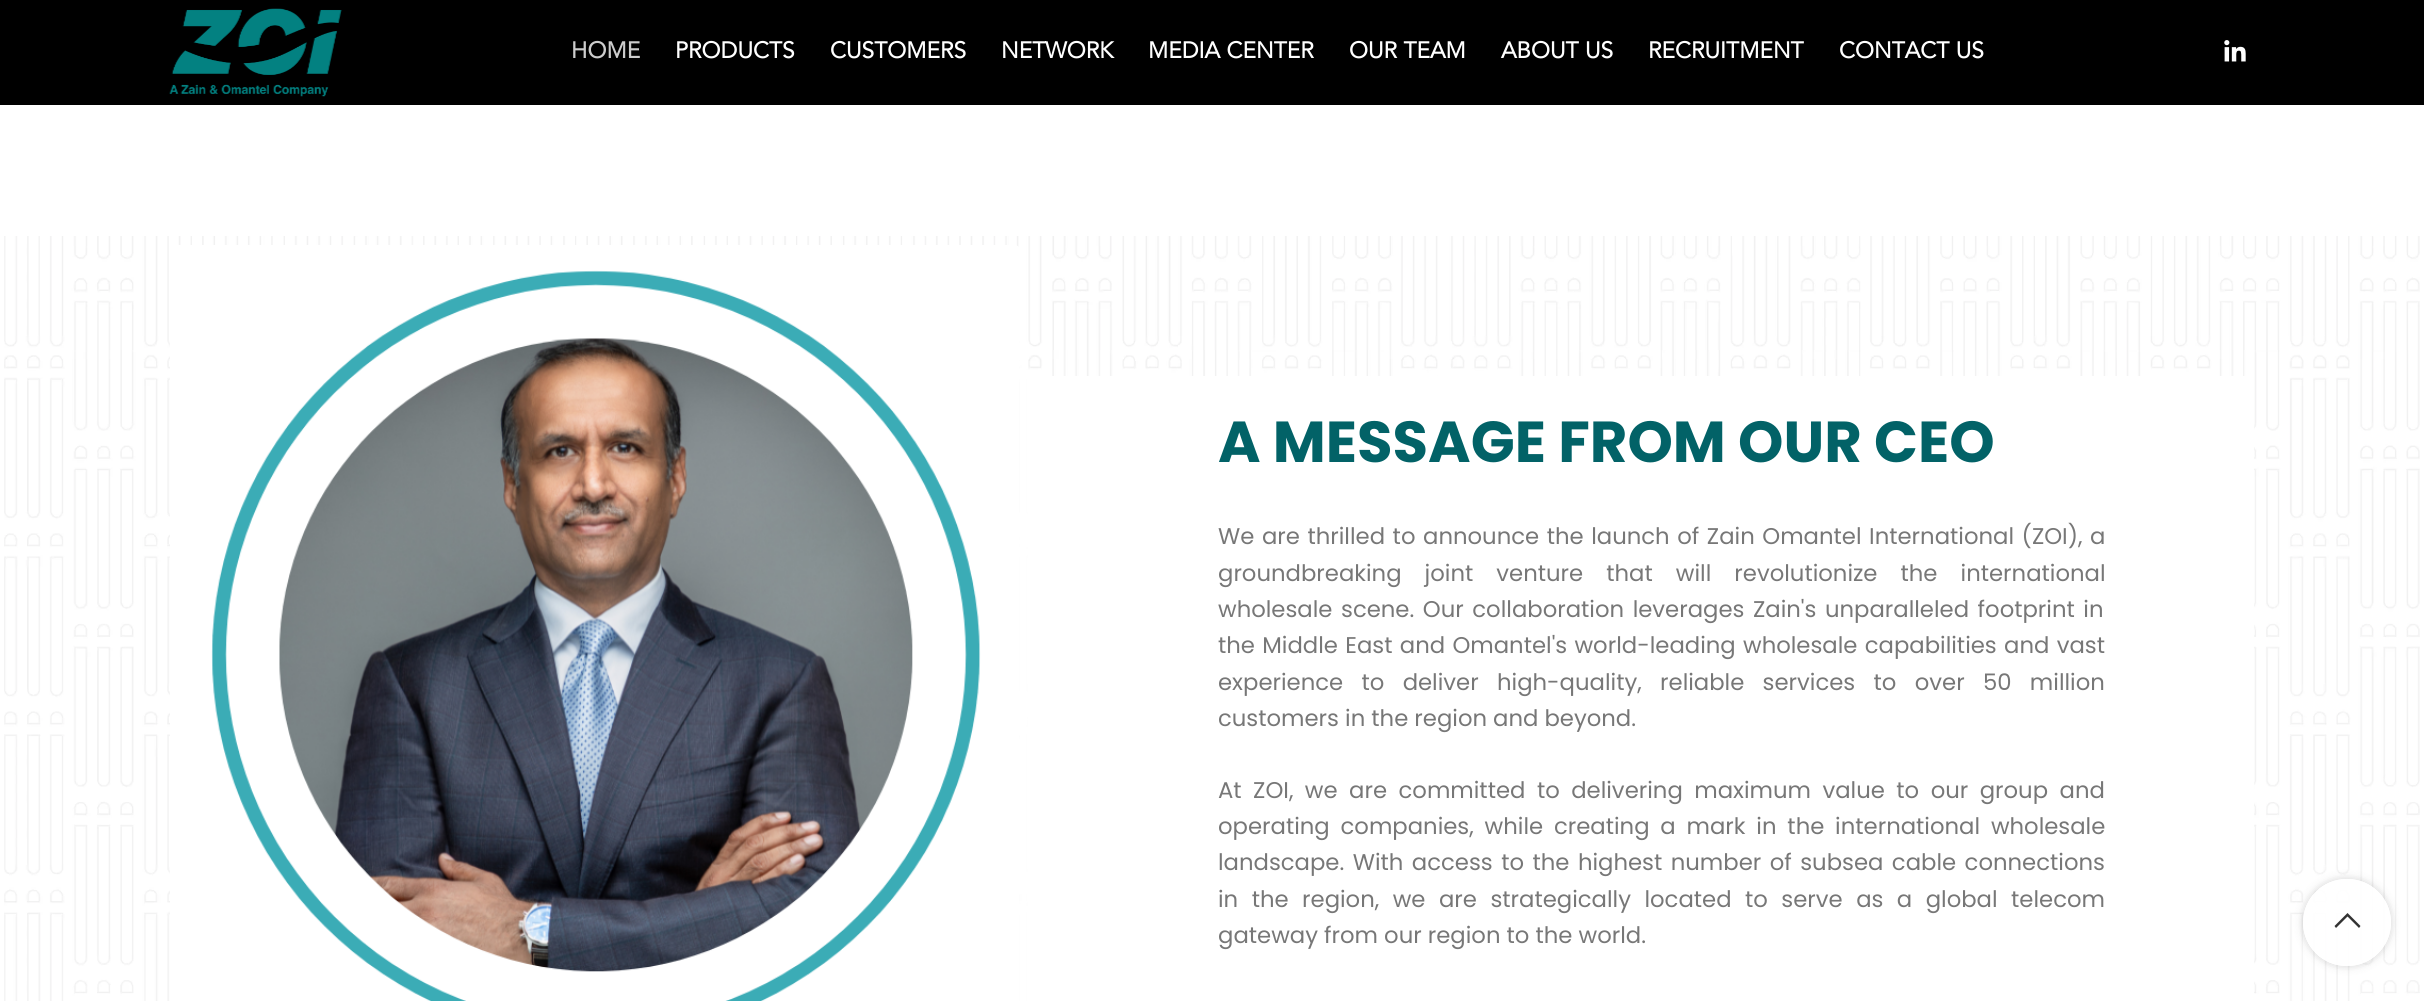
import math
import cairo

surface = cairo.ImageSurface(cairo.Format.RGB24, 2424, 1001)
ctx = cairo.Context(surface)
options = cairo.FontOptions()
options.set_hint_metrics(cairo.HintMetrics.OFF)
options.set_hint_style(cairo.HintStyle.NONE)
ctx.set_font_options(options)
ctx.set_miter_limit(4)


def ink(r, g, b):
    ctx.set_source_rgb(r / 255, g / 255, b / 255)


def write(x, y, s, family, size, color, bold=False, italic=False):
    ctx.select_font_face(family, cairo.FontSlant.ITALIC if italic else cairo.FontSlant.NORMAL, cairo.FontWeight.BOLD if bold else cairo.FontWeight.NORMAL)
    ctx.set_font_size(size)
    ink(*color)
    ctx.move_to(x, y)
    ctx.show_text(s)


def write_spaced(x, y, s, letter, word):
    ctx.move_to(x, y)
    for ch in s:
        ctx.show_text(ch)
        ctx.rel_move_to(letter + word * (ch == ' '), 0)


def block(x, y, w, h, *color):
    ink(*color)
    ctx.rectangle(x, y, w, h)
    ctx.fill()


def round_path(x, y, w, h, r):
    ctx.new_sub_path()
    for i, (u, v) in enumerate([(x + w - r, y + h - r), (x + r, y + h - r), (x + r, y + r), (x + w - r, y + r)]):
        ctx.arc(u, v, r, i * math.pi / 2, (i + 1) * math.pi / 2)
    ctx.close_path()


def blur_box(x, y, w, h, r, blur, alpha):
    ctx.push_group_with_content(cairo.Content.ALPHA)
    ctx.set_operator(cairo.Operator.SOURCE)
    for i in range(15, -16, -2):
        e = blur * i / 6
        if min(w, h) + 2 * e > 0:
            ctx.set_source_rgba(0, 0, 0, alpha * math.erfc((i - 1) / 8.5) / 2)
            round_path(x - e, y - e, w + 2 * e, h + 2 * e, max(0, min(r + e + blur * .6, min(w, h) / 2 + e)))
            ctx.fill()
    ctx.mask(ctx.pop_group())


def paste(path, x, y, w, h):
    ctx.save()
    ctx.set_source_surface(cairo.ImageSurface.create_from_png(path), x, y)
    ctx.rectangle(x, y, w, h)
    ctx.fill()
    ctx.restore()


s1 = dict(family="Avenir", size=22.75, color=(204, 204, 204), bold=True)
s2 = dict(family="Avenir", size=22.75, color=(255, 255, 255), bold=True)
s3 = dict(family="Poppins", size=57.75, color=(2, 98, 103), bold=True)
s4 = dict(family="Poppins", size=22.75, color=(119, 119, 119))

ink(255, 255, 255)
ctx.paint()
block(0, 0, 2424, 105, 0, 0, 0)
paste("pic1.png", 169, 8, 173, 89)
write(571, 58, "HOME", **s1)
write(675, 58, "PRODUCTS", **s2)
write(830, 58, "CUSTOMERS", **s2)
write(1001, 58, "NETWORK", **s2)
write(1148, 58, "MEDIA CENTER", **s2)
write(1349, 58, "OUR TEAM", **s2)
write(1501, 58, "ABOUT US", **s2)
write(1648, 58, "RECRUITMENT", **s2)
write(1839, 58, "CONTACT US", **s2)
paste("pic2.png", 2224, 40, 22, 22)
paste("pic3.png", 4, 236, 2416, 765)
paste("pic4.png", 170, 245, 849, 756)
block(1028, 376, 1226, 625, 255, 255, 255)
write(1218, 462, "A MESSAGE FROM OUR CEO", **s3)
ctx.select_font_face("Poppins")
ctx.set_font_size(22.75)
ink(119, 119, 119)
write_spaced(1218, 544, "We are thrilled to announce the launch of Zain Omantel International (ZOI), a", 0, 1.5)
write_spaced(1218, 581, "groundbreaking joint venture that will revolutionize the international", 0, 17)
write_spaced(1218, 617, "wholesale scene. Our collaboration leverages Zain's unparalleled footprint in", 0, 2.5)
write_spaced(1218, 653, "the Middle East and Omantel's world-leading wholesale capabilities and vast", 0, 1.25)
write_spaced(1218, 690, "experience to deliver high-quality, reliable services to over 50 million", 0, 12.25)
write(1218, 726, "customers in the region and beyond.", **s4)
write_spaced(1218, 798, "At ZOI, we are committed to delivering maximum value to our group and", 0, 5.4)
write_spaced(1218, 834, "operating companies, while creating a mark in the international wholesale", 0, 4.75)
write_spaced(1218, 870, "landscape. With access to the highest number of subsea cable connections", 0, 2.4)
write_spaced(1218, 907, "in the region, we are strategically located to serve as a global telecom", 0, 7.4)
write(1218, 943, "gateway from our region to the world.", **s4)
ctx.save()
ctx.set_fill_rule(cairo.FillRule.EVEN_ODD)
ctx.new_path()
ctx.move_to(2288, 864)
ctx.line_to(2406, 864)
ctx.line_to(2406, 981)
ctx.line_to(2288, 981)
ctx.close_path()
ctx.move_to(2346.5, 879)
ctx.line_to(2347.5, 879)
ctx.curve_to(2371.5, 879, 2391, 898.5, 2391, 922.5)
ctx.curve_to(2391, 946.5, 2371.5, 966, 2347.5, 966)
ctx.line_to(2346.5, 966)
ctx.curve_to(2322.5, 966, 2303, 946.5, 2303, 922.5)
ctx.curve_to(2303, 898.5, 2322.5, 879, 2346.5, 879)
ctx.close_path()
ctx.clip()
ink(0, 0, 0)
blur_box(2303, 879, 88, 87, 43.5, 4.5, 0.17)
ctx.restore()
ctx.set_source_rgba(1, 1, 1, 0.9)
round_path(2303, 879, 88, 87, 43.5)
ctx.fill()
ink(51, 51, 51)
ctx.new_path()
ctx.move_to(2359, 928)
ctx.line_to(2360.5, 926)
ctx.line_to(2347.5, 913)
ctx.line_to(2334.5, 926)
ctx.line_to(2336, 928)
ctx.line_to(2347.5, 916.5)
ctx.close_path()
ctx.fill()
surface.write_to_png("screenshot.png")
